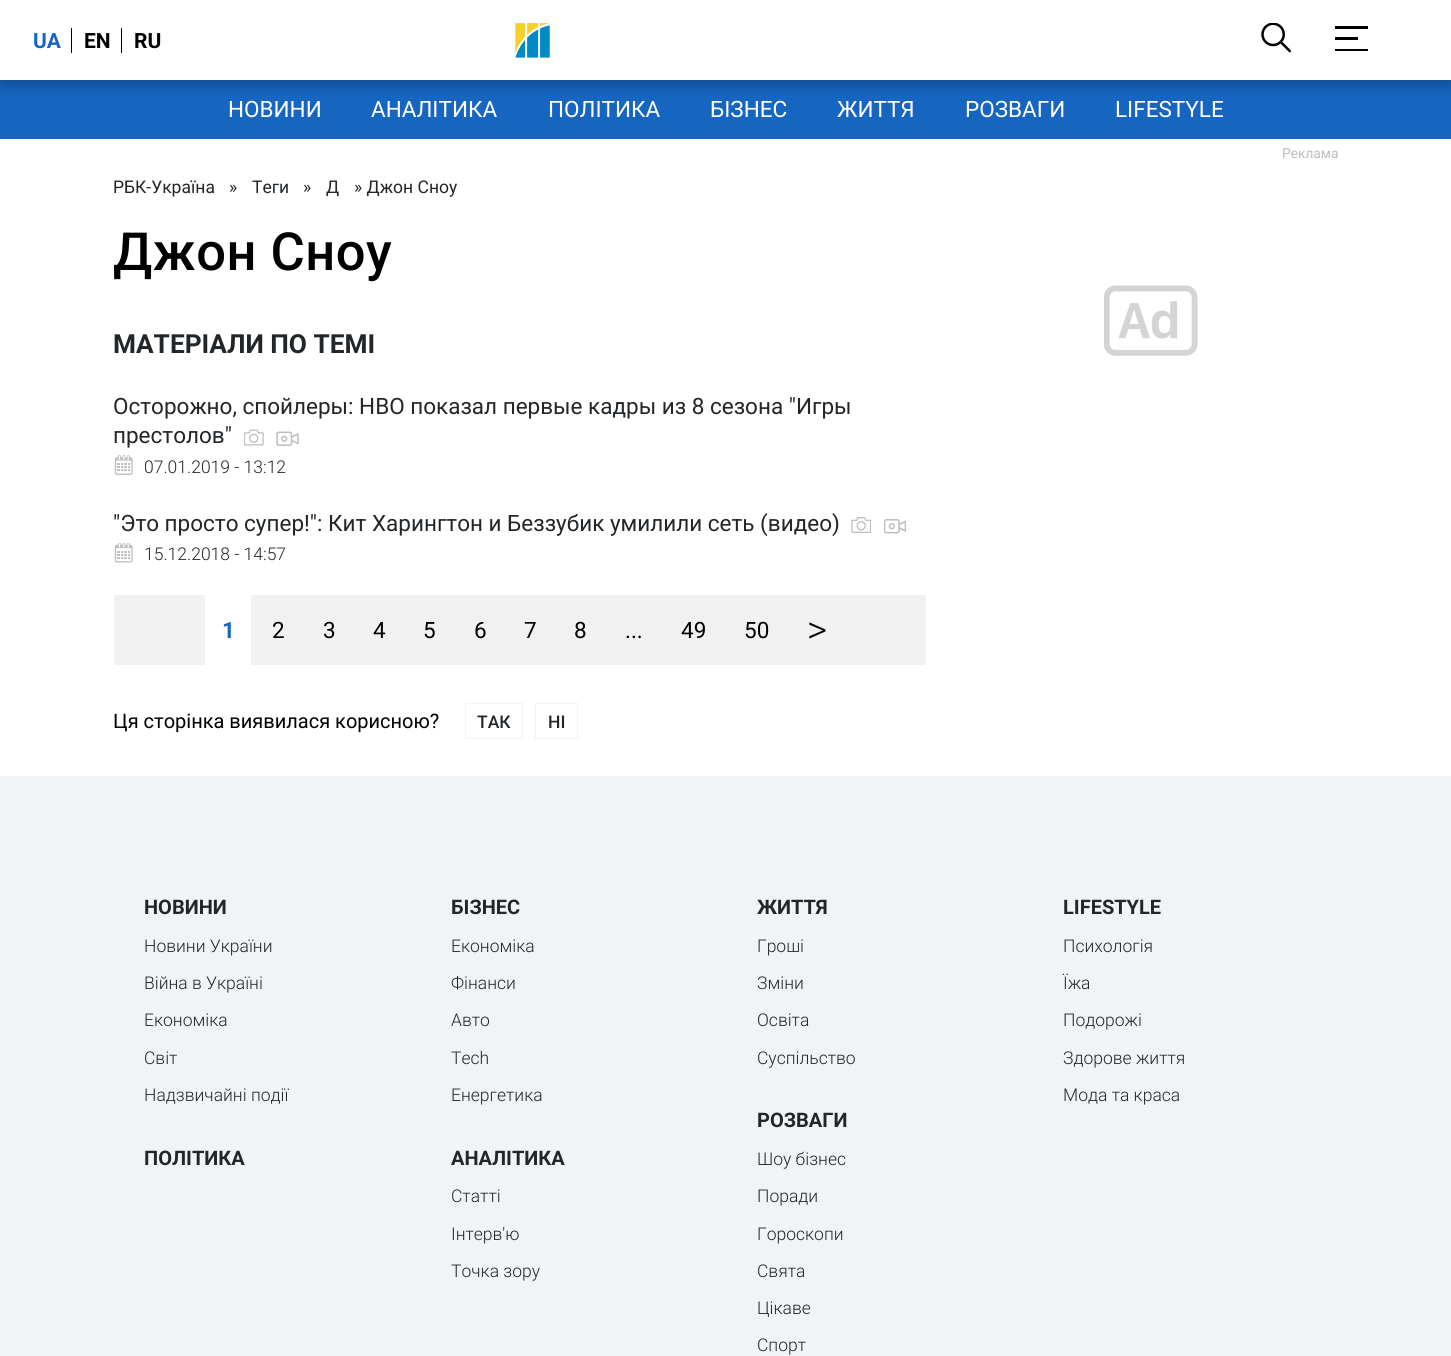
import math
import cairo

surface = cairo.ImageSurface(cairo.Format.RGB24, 1451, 1356)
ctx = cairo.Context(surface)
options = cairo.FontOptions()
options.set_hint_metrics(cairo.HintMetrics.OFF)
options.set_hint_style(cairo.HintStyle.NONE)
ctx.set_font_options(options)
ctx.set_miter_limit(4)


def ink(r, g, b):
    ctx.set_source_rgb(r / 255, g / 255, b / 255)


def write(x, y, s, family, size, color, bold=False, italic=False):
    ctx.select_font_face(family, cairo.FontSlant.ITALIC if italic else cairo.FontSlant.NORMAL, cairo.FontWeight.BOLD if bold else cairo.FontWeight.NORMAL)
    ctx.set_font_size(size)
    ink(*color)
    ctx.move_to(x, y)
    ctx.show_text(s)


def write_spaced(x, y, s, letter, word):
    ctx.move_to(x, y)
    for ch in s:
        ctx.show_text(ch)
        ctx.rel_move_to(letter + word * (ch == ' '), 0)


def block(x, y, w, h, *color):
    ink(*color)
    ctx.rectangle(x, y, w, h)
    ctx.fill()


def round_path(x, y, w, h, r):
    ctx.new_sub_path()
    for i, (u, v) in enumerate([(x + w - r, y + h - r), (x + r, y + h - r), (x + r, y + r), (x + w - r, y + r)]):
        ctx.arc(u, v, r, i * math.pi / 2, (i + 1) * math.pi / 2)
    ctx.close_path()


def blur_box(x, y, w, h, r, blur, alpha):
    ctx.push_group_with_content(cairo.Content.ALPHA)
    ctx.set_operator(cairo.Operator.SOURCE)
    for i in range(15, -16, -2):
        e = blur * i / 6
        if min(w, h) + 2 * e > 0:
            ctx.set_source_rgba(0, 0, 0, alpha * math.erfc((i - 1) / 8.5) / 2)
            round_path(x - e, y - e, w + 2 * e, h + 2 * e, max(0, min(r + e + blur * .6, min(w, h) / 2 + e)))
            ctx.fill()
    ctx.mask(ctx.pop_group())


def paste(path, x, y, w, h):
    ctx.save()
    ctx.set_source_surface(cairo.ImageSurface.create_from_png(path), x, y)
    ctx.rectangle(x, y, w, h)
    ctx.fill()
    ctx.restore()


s1 = dict(family="Roboto", size=21, color=(22, 101, 193), bold=True)
s2 = dict(family="Roboto", size=21, color=(0, 0, 0), bold=True)
s3 = dict(family="Roboto", size=22.5, color=(255, 255, 255))
s4 = dict(family="Roboto", size=13.75, color=(188, 187, 191))
s5 = dict(family="Roboto", size=17.5, color=(34, 38, 41))
s6 = dict(family="Roboto", size=26.25, color=(34, 38, 41), bold=True)
s7 = dict(family="Roboto", size=22.5, color=(34, 38, 41))
s8 = dict(family="Roboto Light", size=17.5, color=(34, 38, 41))
s9 = dict(family="Roboto", size=22.5, color=(22, 101, 193), bold=True)
s10 = dict(family="Roboto", size=22.5, color=(0, 0, 0))
s11 = dict(family="Roboto Light", size=39, color=(0, 0, 0))
s12 = dict(family="Roboto", size=20, color=(0, 0, 0))
s13 = dict(family="Roboto Medium", size=17.5, color=(34, 38, 41))
s14 = dict(family="Roboto", size=20, color=(34, 38, 41), bold=True)

ink(255, 255, 255)
ctx.paint()
block(0, 80, 1451, 59, 22, 101, 193)
ctx.save()
ctx.rectangle(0, 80, 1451, 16)
ctx.clip()
ink(0, 0, 0)
blur_box(0, 1, 1451, 80, 0, 9.5, 0.38)
ctx.restore()
write(33, 48, "UA", **s1)
block(71, 28, 1, 25, 0, 0, 0)
write(84, 48, "EN", **s2)
block(121, 28, 1, 25, 0, 0, 0)
write(134, 48, "RU", **s2)
paste("pic1.png", 515, 23, 35, 35)
paste("pic2.png", 1261, 23, 30, 30)
block(1335, 26, 33, 3, 0, 0, 0)
block(1335, 37, 23, 3, 0, 0, 0)
block(1335, 49, 33, 2, 0, 0, 0)
write(228, 117, "НОВИНИ", **s3)
write(371, 117, "АНАЛІТИКА", **s3)
write(548, 117, "ПОЛІТИКА", **s3)
write(710, 117, "БІЗНЕС", **s3)
write(837, 117, "ЖИТТЯ", **s3)
write(965, 117, "РОЗВАГИ", **s3)
write(1115, 117, "LIFESTYLE", **s3)
write(1282, 158, "Реклама", **s4)
paste("pic3.png", 1104, 285, 94, 71)
write(113, 193, "РБК-Україна", **s5)
write(229, 193, "»", **s5)
write(252, 193, "Теги", **s5)
write(303, 193, "»", **s5)
write(326, 193, "Д", **s5)
write(354, 193, "» Джон Сноу", **s5)
ctx.select_font_face("Roboto Medium")
ctx.set_font_size(52.5)
ink(0, 0, 0)
write_spaced(113, 270, "Джон Сноу", 0.5, 0)
write(113, 353, "МАТЕРІАЛИ ПО ТЕМІ", **s6)
write(113, 414, "Осторожно, спойлеры: HBO показал первые кадры из 8 сезона \"Игры", **s7)
write(113, 443, "престолов\"", **s7)
paste("pic4.png", 244, 429, 20, 17)
paste("pic5.png", 276, 431, 23, 15)
paste("pic6.png", 114, 455, 19, 20)
write(144, 473, "07.01.2019 - 13:12", **s8)
write(113, 531, "\"Это просто супер!\": Кит Харингтон и Беззубик умилили сеть (видео)", **s7)
paste("pic7.png", 851, 517, 20, 16)
paste("pic8.png", 884, 519, 22, 15)
paste("pic9.png", 114, 543, 19, 20)
write(144, 560, "15.12.2018 - 14:57", **s8)
block(114, 595, 812, 70, 241, 241, 241)
block(205, 595, 46, 70, 255, 255, 255)
write(222, 638, "1", **s9)
write(272, 638, "2", **s10)
write(323, 638, "3", **s10)
write(373, 638, "4", **s10)
write(423, 638, "5", **s10)
write(474, 638, "6", **s10)
write(524, 638, "7", **s10)
write(574, 638, "8", **s10)
write(625, 638, "...", **s10)
write(681, 638, "49", **s10)
write(744, 638, "50", **s10)
write(807, 643, ">", **s11)
write(113, 728, "Ця сторінка виявилася корисною?", **s12)
ctx.rectangle(465.5, 703.5, 57, 35)
ink(241, 244, 246)
ctx.set_line_width(1)
ctx.stroke()
write(477, 728, "ТАК", **s13)
ctx.rectangle(535.5, 703.5, 42, 35)
ink(241, 244, 246)
ctx.stroke()
write(548, 728, "НІ", **s13)
block(0, 776, 1451, 580, 241, 244, 246)
write(144, 914, "НОВИНИ", **s14)
write(144, 952, "Новини України", **s8)
write(144, 989, "Війна в Україні", **s8)
write(144, 1026, "Економіка", **s8)
write(144, 1064, "Світ", **s8)
write(144, 1101, "Надзвичайні події", **s8)
write(144, 1165, "ПОЛІТИКА", **s14)
write(451, 914, "БІЗНЕС", **s14)
write(451, 952, "Економіка", **s8)
write(451, 989, "Фінанси", **s8)
write(451, 1026, "Авто", **s8)
write(451, 1064, "Tech", **s8)
write(451, 1101, "Енергетика", **s8)
write(451, 1165, "АНАЛІТИКА", **s14)
write(451, 1202, "Статті", **s8)
write(451, 1240, "Інтерв'ю", **s8)
write(451, 1277, "Точка зору", **s8)
write(757, 914, "ЖИТТЯ", **s14)
write(757, 952, "Гроші", **s8)
write(757, 989, "Зміни", **s8)
write(757, 1026, "Освіта", **s8)
write(757, 1064, "Суспільство", **s8)
write(757, 1127, "РОЗВАГИ", **s14)
write(757, 1165, "Шоу бізнес", **s8)
write(757, 1202, "Поради", **s8)
write(757, 1240, "Гороскопи", **s8)
write(757, 1277, "Свята", **s8)
write(757, 1314, "Цікаве", **s8)
write(757, 1351, "Спорт", **s8)
write(1063, 914, "LIFESTYLE", **s14)
write(1063, 952, "Психологія", **s8)
write(1063, 989, "Їжа", **s8)
write(1063, 1026, "Подорожі", **s8)
write(1063, 1064, "Здорове життя", **s8)
write(1063, 1101, "Мода та краса", **s8)
surface.write_to_png("screenshot.png")
